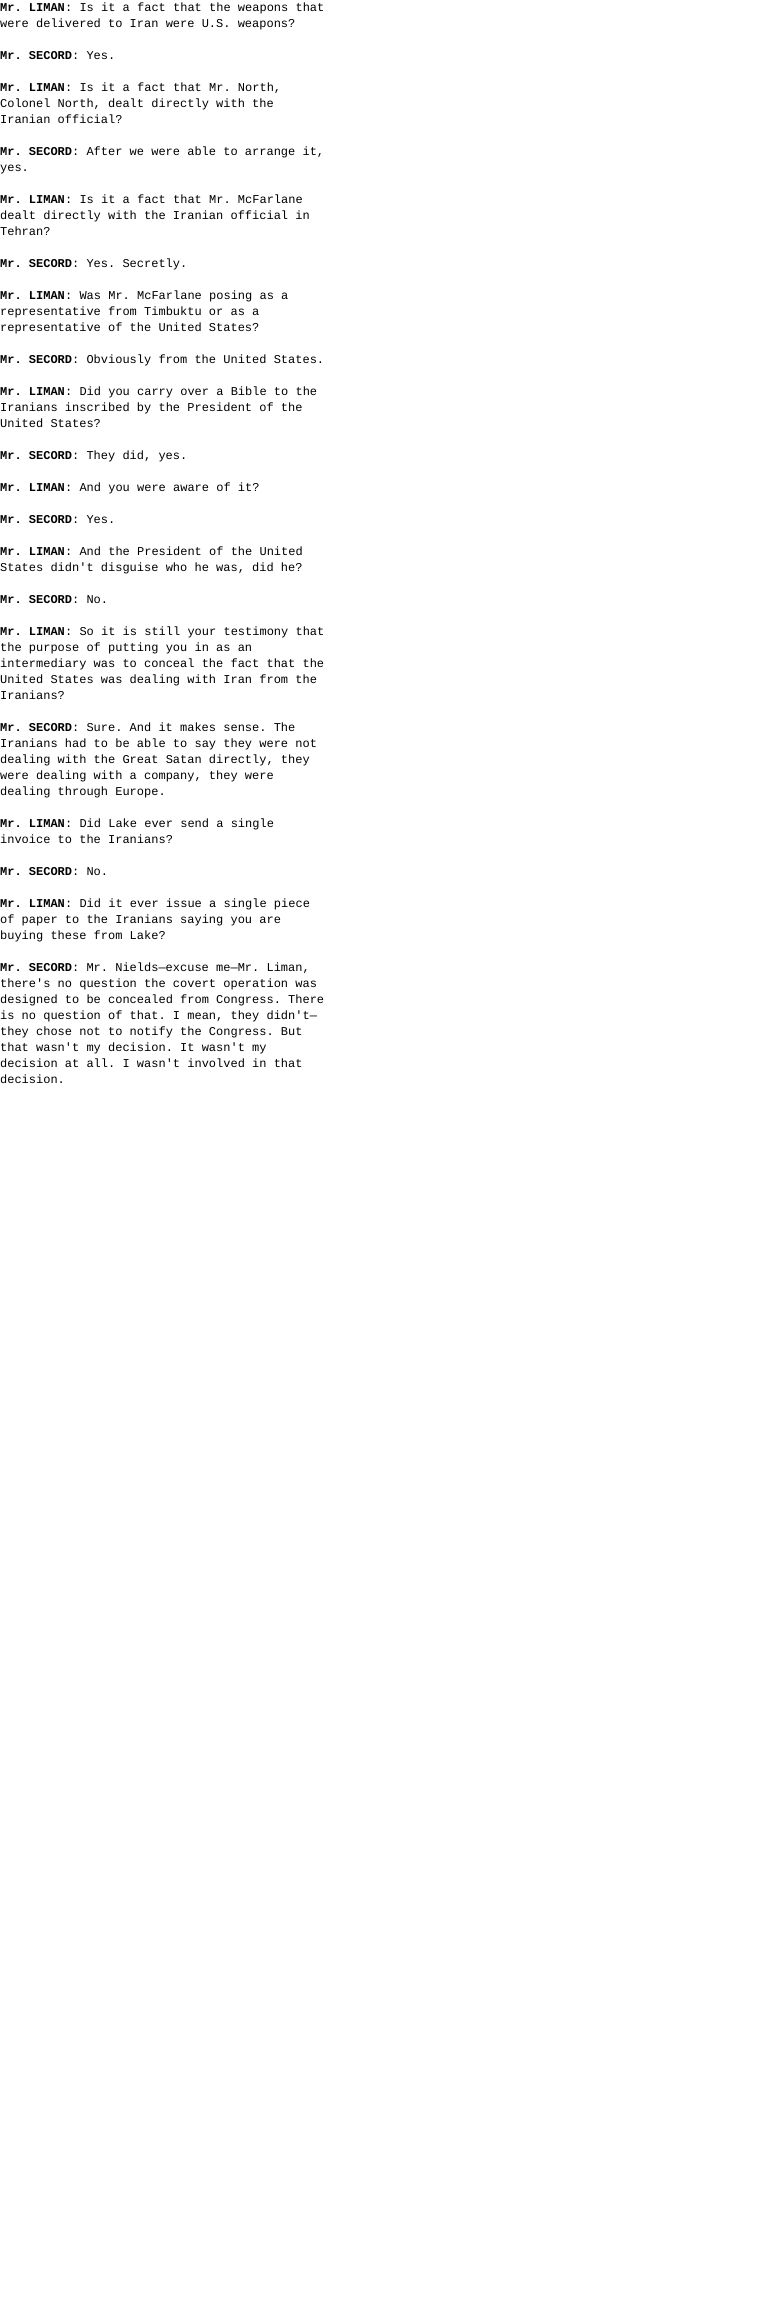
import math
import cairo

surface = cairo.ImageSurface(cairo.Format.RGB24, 768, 2302)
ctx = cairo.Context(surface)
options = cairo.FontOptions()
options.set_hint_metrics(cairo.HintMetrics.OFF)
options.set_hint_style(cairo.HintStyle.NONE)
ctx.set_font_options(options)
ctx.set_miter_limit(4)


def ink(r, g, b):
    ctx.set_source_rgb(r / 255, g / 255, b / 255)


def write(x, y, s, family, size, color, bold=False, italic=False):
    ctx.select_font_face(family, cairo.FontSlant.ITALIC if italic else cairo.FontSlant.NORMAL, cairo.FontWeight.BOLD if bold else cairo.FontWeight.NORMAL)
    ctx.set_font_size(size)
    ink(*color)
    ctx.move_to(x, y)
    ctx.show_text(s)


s1 = dict(family="Liberation Mono", size=12, color=(0, 0, 0), bold=True)
s2 = dict(family="Liberation Mono", size=12, color=(0, 0, 0))

ink(255, 255, 255)
ctx.paint()
write(0, 11, "Mr. LIMAN", **s1)
write(65, 11, ": Is it a fact that the weapons that", **s2)
write(0, 27, "were delivered to Iran were U.S. weapons?", **s2)
write(0, 59, "Mr. SECORD", **s1)
write(72, 59, ": Yes.", **s2)
write(0, 91, "Mr. LIMAN", **s1)
write(65, 91, ": Is it a fact that Mr. North,", **s2)
write(0, 107, "Colonel North, dealt directly with the", **s2)
write(0, 123, "Iranian official?", **s2)
write(0, 155, "Mr. SECORD", **s1)
write(72, 155, ": After we were able to arrange it,", **s2)
write(0, 171, "yes.", **s2)
write(0, 203, "Mr. LIMAN", **s1)
write(65, 203, ": Is it a fact that Mr. McFarlane", **s2)
write(0, 219, "dealt directly with the Iranian official in", **s2)
write(0, 235, "Tehran?", **s2)
write(0, 267, "Mr. SECORD", **s1)
write(72, 267, ": Yes. Secretly.", **s2)
write(0, 299, "Mr. LIMAN", **s1)
write(65, 299, ": Was Mr. McFarlane posing as a", **s2)
write(0, 315, "representative from Timbuktu or as a", **s2)
write(0, 331, "representative of the United States?", **s2)
write(0, 363, "Mr. SECORD", **s1)
write(72, 363, ": Obviously from the United States.", **s2)
write(0, 395, "Mr. LIMAN", **s1)
write(65, 395, ": Did you carry over a Bible to the", **s2)
write(0, 411, "Iranians inscribed by the President of the", **s2)
write(0, 427, "United States?", **s2)
write(0, 459, "Mr. SECORD", **s1)
write(72, 459, ": They did, yes.", **s2)
write(0, 491, "Mr. LIMAN", **s1)
write(65, 491, ": And you were aware of it?", **s2)
write(0, 523, "Mr. SECORD", **s1)
write(72, 523, ": Yes.", **s2)
write(0, 555, "Mr. LIMAN", **s1)
write(65, 555, ": And the President of the United", **s2)
write(0, 571, "States didn't disguise who he was, did he?", **s2)
write(0, 603, "Mr. SECORD", **s1)
write(72, 603, ": No.", **s2)
write(0, 635, "Mr. LIMAN", **s1)
write(65, 635, ": So it is still your testimony that", **s2)
write(0, 651, "the purpose of putting you in as an", **s2)
write(0, 667, "intermediary was to conceal the fact that the", **s2)
write(0, 683, "United States was dealing with Iran from the", **s2)
write(0, 699, "Iranians?", **s2)
write(0, 731, "Mr. SECORD", **s1)
write(72, 731, ": Sure. And it makes sense. The", **s2)
write(0, 747, "Iranians had to be able to say they were not", **s2)
write(0, 763, "dealing with the Great Satan directly, they", **s2)
write(0, 779, "were dealing with a company, they were", **s2)
write(0, 795, "dealing through Europe.", **s2)
write(0, 827, "Mr. LIMAN", **s1)
write(65, 827, ": Did Lake ever send a single", **s2)
write(0, 843, "invoice to the Iranians?", **s2)
write(0, 875, "Mr. SECORD", **s1)
write(72, 875, ": No.", **s2)
write(0, 907, "Mr. LIMAN", **s1)
write(65, 907, ": Did it ever issue a single piece", **s2)
write(0, 923, "of paper to the Iranians saying you are", **s2)
write(0, 939, "buying these from Lake?", **s2)
write(0, 971, "Mr. SECORD", **s1)
write(72, 971, ": Mr. Nields—excuse me—Mr. Liman,", **s2)
write(0, 987, "there's no question the covert operation was", **s2)
write(0, 1003, "designed to be concealed from Congress. There", **s2)
write(0, 1019, "is no question of that. I mean, they didn't—", **s2)
write(0, 1035, "they chose not to notify the Congress. But", **s2)
write(0, 1051, "that wasn't my decision. It wasn't my", **s2)
write(0, 1067, "decision at all. I wasn't involved in that", **s2)
write(0, 1083, "decision.", **s2)
surface.write_to_png("screenshot.png")
